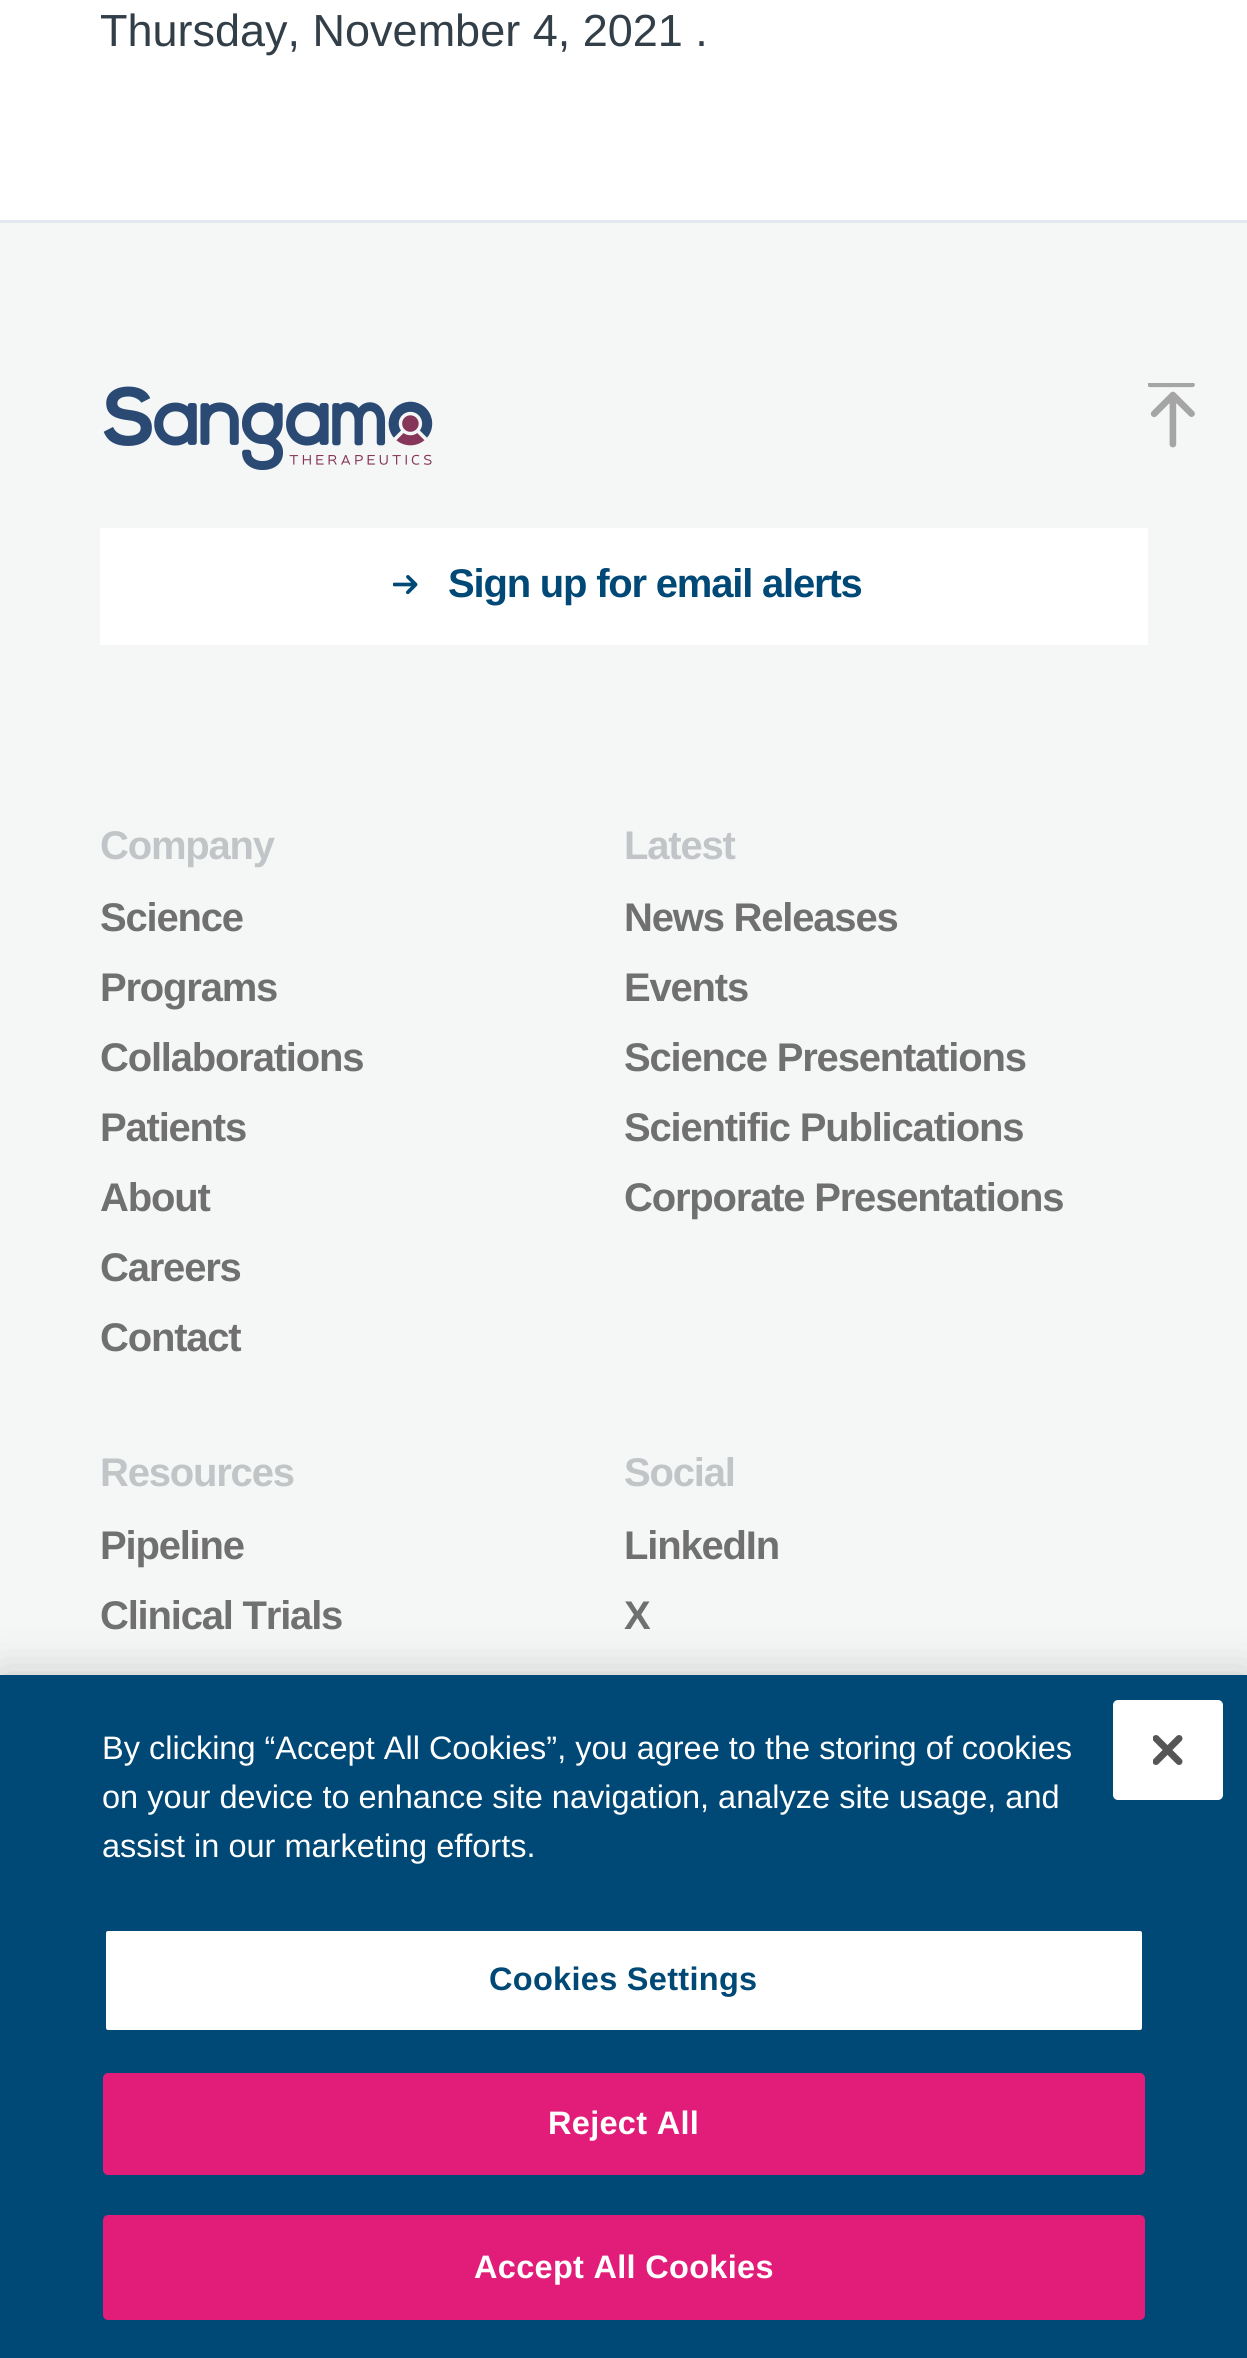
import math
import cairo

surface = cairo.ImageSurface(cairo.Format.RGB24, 1247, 2358)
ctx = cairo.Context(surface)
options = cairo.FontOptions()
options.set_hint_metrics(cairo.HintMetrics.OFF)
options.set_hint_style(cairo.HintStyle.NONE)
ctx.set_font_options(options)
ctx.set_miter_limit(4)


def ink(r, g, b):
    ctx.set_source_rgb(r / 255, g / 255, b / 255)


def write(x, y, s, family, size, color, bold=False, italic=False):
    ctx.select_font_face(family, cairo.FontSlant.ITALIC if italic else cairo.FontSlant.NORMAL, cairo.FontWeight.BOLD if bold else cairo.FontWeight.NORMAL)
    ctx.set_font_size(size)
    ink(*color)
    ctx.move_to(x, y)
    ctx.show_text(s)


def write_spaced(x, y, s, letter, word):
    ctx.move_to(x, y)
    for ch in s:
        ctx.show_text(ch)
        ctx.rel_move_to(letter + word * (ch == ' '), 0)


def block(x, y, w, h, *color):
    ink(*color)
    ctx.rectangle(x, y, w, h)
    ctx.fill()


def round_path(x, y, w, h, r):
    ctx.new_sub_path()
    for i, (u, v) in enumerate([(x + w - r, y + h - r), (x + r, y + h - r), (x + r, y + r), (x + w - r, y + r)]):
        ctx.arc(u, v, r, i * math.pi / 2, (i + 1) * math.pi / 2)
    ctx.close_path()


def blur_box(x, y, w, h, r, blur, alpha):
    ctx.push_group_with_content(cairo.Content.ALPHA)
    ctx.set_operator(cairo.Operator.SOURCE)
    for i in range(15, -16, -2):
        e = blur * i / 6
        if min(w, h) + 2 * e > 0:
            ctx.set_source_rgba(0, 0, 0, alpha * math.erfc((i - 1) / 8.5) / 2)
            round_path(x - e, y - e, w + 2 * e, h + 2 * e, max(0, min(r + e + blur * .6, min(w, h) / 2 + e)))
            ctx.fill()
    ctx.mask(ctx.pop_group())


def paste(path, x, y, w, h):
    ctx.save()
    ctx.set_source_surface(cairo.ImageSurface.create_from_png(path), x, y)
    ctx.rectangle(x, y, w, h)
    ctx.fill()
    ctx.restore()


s1 = dict(family="Liberation Sans", size=45, color=(51, 63, 72))
s2 = dict(family="Liberation Sans", size=32.5, color=(255, 255, 255))

ink(255, 255, 255)
ctx.paint()
write(100, 46, "Thursday, November 4, 2021 .", **s1)
block(0, 223, 1247, 1452, 245, 246, 246)
block(0, 220, 1247, 3, 226, 232, 240)
paste("pic1.png", 103, 386, 330, 84)
paste("pic2.png", 1148, 383, 47, 65)
block(100, 528, 1048, 117, 255, 255, 255)
paste("pic3.png", 393, 575, 25, 20)
ctx.select_font_face("Liberation Sans", cairo.FontSlant.NORMAL, cairo.FontWeight.BOLD)
ctx.set_font_size(40)
ink(0, 72, 117)
write_spaced(448, 597, "Sign up for email alerts", -1.2, 0)
ink(193, 197, 199)
write_spaced(100, 859, "Company", -1.2, 0)
ink(112, 112, 112)
write_spaced(100, 931, "Science", -1.2, 0)
write_spaced(100, 1001, "Programs", -1.2, 0)
write_spaced(100, 1071, "Collaborations", -1.2, 0)
write_spaced(100, 1141, "Patients", -1.2, 0)
write_spaced(100, 1211, "About", -1.2, 0)
write_spaced(100, 1281, "Careers", -1.2, 0)
write_spaced(100, 1351, "Contact", -1.2, 0)
ink(193, 197, 199)
write_spaced(624, 859, "Latest", -1.2, 0)
ink(112, 112, 112)
write_spaced(624, 931, "News Releases", -1.2, 0)
write_spaced(624, 1001, "Events", -1.2, 0)
write_spaced(624, 1071, "Science Presentations", -1.2, 0)
write_spaced(624, 1141, "Scientific Publications", -1.2, 0)
write_spaced(624, 1211, "Corporate Presentations", -1.2, 0)
ink(193, 197, 199)
write_spaced(100, 1486, "Resources", -1.2, 0)
ink(112, 112, 112)
write_spaced(100, 1559, "Pipeline", -1.2, 0)
write_spaced(100, 1629, "Clinical Trials", -1.2, 0)
ink(193, 197, 199)
write_spaced(624, 1486, "Social", -1.2, 0)
ink(112, 112, 112)
write_spaced(624, 1559, "LinkedIn", -1.2, 0)
write_spaced(624, 1629, "X", -1.2, 0)
ink(0, 0, 0)
blur_box(0, 1675, 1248, 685, 0, 22.5, 0.2)
block(0, 1675, 1247, 683, 0, 72, 117)
write(102, 1759, "By clicking “Accept All Cookies”, you agree to the storing of cookies", **s2)
write(102, 1808, "on your device to enhance site navigation, analyze site usage, and", **s2)
write(102, 1857, "assist in our marketing efforts.", **s2)
round_path(104.5, 1929.5, 1039, 102, 3.5)
ctx.fill_preserve()
ink(0, 72, 117)
ctx.set_line_width(3)
ctx.stroke()
ctx.select_font_face("Liberation Sans", cairo.FontSlant.NORMAL, cairo.FontWeight.BOLD)
write_spaced(489, 1990, "Cookies Settings", 0.3, 0)
ink(226, 29, 121)
round_path(104.5, 2074.5, 1039, 99, 3.5)
ctx.fill_preserve()
ctx.stroke()
ink(255, 255, 255)
write_spaced(548, 2134, "Reject All", 0.3, 0)
ink(226, 29, 121)
round_path(104.5, 2216.5, 1039, 102, 3.5)
ctx.fill_preserve()
ctx.stroke()
ink(255, 255, 255)
write_spaced(474, 2278, "Accept All Cookies", 0.3, 0)
round_path(1113, 1700, 110, 100, 5)
ctx.fill()
paste("pic4.png", 1153, 1735, 30, 30)
surface.write_to_png("screenshot.png")
